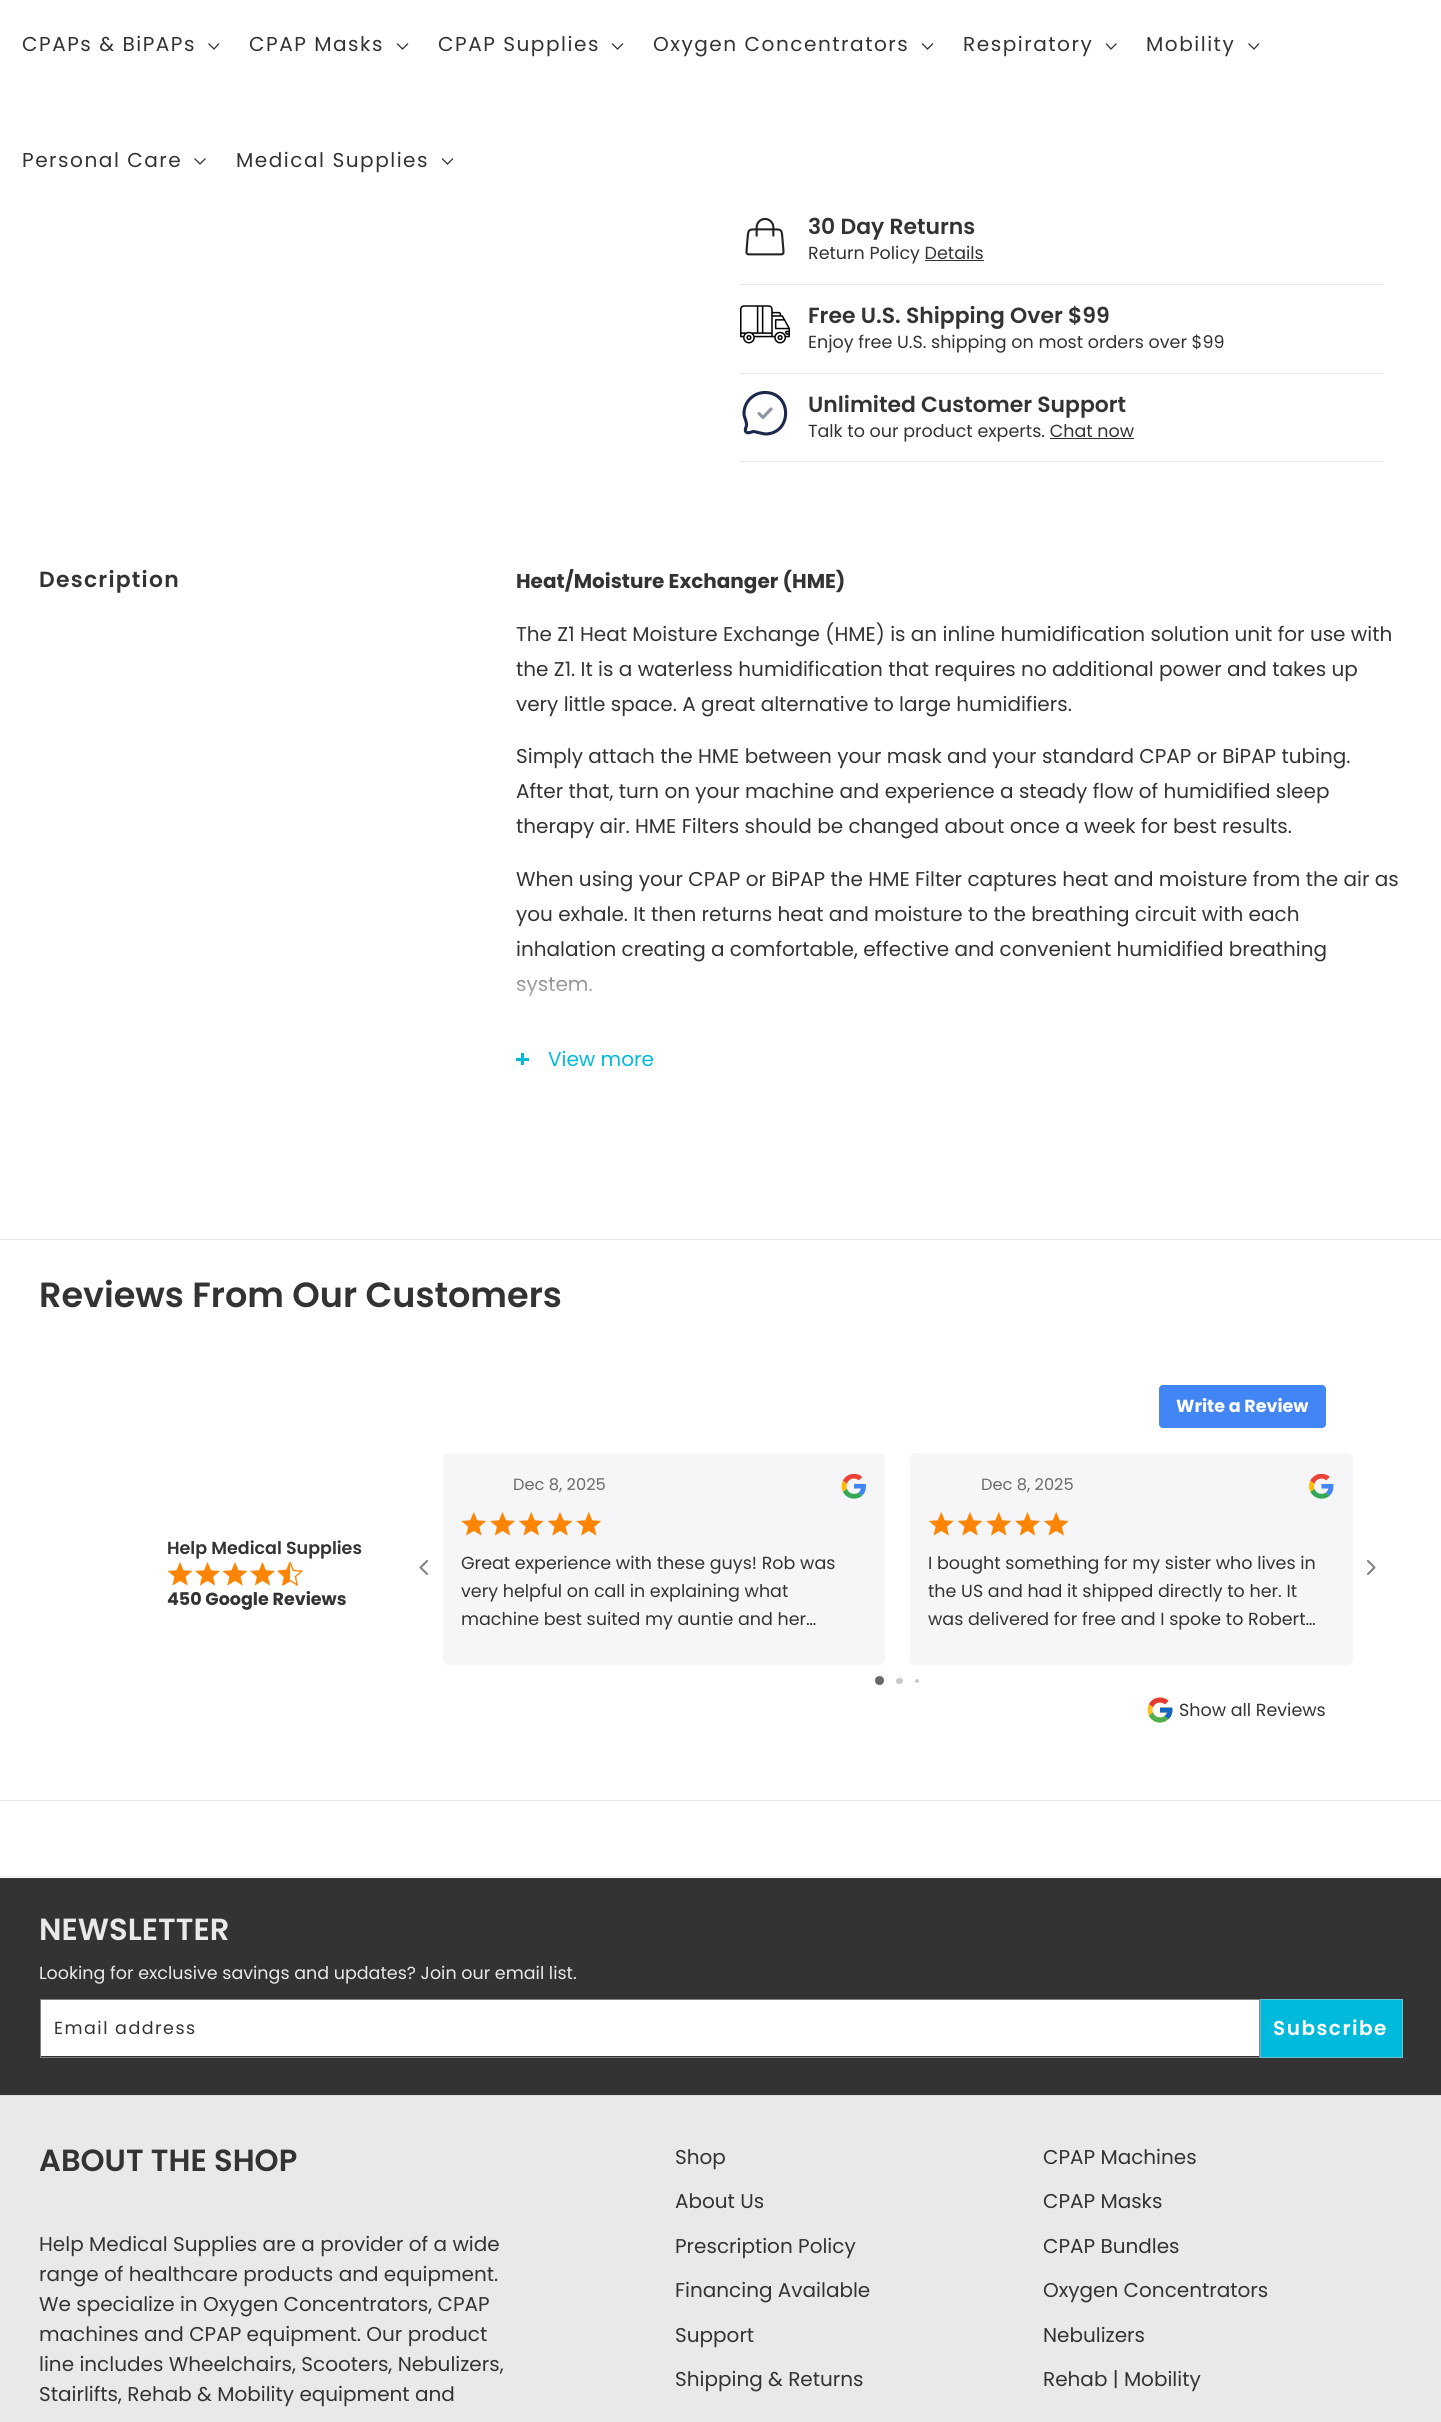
import math
import cairo

surface = cairo.ImageSurface(cairo.Format.RGB24, 1441, 2422)
ctx = cairo.Context(surface)
options = cairo.FontOptions()
options.set_hint_metrics(cairo.HintMetrics.OFF)
options.set_hint_style(cairo.HintStyle.NONE)
ctx.set_font_options(options)
ctx.set_miter_limit(4)


def ink(r, g, b):
    ctx.set_source_rgb(r / 255, g / 255, b / 255)


def write(x, y, s, family, size, color, bold=False, italic=False):
    ctx.select_font_face(family, cairo.FontSlant.ITALIC if italic else cairo.FontSlant.NORMAL, cairo.FontWeight.BOLD if bold else cairo.FontWeight.NORMAL)
    ctx.set_font_size(size)
    ink(*color)
    ctx.move_to(x, y)
    ctx.show_text(s)


def write_spaced(x, y, s, letter, word):
    ctx.move_to(x, y)
    for ch in s:
        ctx.show_text(ch)
        ctx.rel_move_to(letter + word * (ch == ' '), 0)


def block(x, y, w, h, *color):
    ink(*color)
    ctx.rectangle(x, y, w, h)
    ctx.fill()


def round_path(x, y, w, h, r):
    ctx.new_sub_path()
    for i, (u, v) in enumerate([(x + w - r, y + h - r), (x + r, y + h - r), (x + r, y + r), (x + w - r, y + r)]):
        ctx.arc(u, v, r, i * math.pi / 2, (i + 1) * math.pi / 2)
    ctx.close_path()


def paste(path, x, y, w, h):
    ctx.save()
    ctx.set_source_surface(cairo.ImageSurface.create_from_png(path), x, y)
    ctx.rectangle(x, y, w, h)
    ctx.fill()
    ctx.restore()


s1 = dict(family="Poppins SemiBold", size=21.9, color=(51, 51, 51))
s2 = dict(family="Poppins", size=17.5, color=(51, 51, 51))
s3 = dict(family="Poppins", size=20, color=(51, 51, 51), bold=True)
s4 = dict(family="Poppins", size=20, color=(51, 51, 51))
s5 = dict(family="Poppins", size=20, color=(0, 186, 219))
s6 = dict(family="Poppins SemiBold", size=35, color=(51, 51, 51))
s7 = dict(family="Poppins", size=17.5, color=(255, 255, 255), bold=True)
s8 = dict(family="Poppins SemiBold", size=17.5, color=(51, 51, 51))
s9 = dict(family="Poppins", size=17.5, color=(51, 51, 51), bold=True)
s10 = dict(family="Poppins", size=16.25, color=(107, 107, 108))
s11 = dict(family="Poppins SemiBold", size=30.6, color=(233, 233, 233))
s12 = dict(family="Poppins", size=17.5, color=(233, 233, 233))
s13 = dict(family="Poppins SemiBold", size=30.6, color=(51, 51, 51))

ink(255, 255, 255)
ctx.paint()
ctx.select_font_face("Poppins")
ctx.set_font_size(20.1)
ink(51, 51, 51)
write_spaced(22, 51, "CPAPs & BiPAPs", 1.5, 0)
ctx.new_path()
ctx.move_to(218.5, 44)
ctx.line_to(214, 49)
ctx.line_to(209, 44)
ctx.set_line_width(1.3)
ctx.set_line_cap(cairo.LineCap.SQUARE)
ctx.stroke()
write_spaced(249, 51, "CPAP Masks", 1.5, 0)
ctx.new_path()
ctx.move_to(407.5, 44)
ctx.line_to(402.5, 49)
ctx.line_to(397.5, 44)
ctx.stroke()
write_spaced(438, 51, "CPAP Supplies", 1.5, 0)
ctx.new_path()
ctx.move_to(622.5, 44)
ctx.line_to(617.5, 49)
ctx.line_to(612.5, 44)
ctx.stroke()
write_spaced(653, 51, "Oxygen Concentrators", 1.5, 0)
ctx.new_path()
ctx.move_to(932.5, 44)
ctx.line_to(927.5, 49)
ctx.line_to(922.5, 44)
ctx.stroke()
write_spaced(963, 51, "Respiratory", 1.5, 0)
ctx.new_path()
ctx.move_to(1116, 44)
ctx.line_to(1111, 49)
ctx.line_to(1106.5, 44)
ctx.stroke()
write_spaced(1146, 51, "Mobility", 1.5, 0)
ctx.new_path()
ctx.move_to(1258.5, 44)
ctx.line_to(1254, 49)
ctx.line_to(1249, 44)
ctx.stroke()
write_spaced(22, 167, "Personal Care", 1.5, 0)
ctx.new_path()
ctx.move_to(205, 159)
ctx.line_to(200, 164)
ctx.line_to(195, 159)
ctx.stroke()
write_spaced(236, 167, "Medical Supplies", 1.5, 0)
ctx.new_path()
ctx.move_to(452.5, 159)
ctx.line_to(447.5, 164)
ctx.line_to(442.5, 159)
ctx.stroke()
block(740, 284, 644, 1, 230, 230, 230)
paste("pic1.png", 745, 217, 40, 39)
write(808, 234, "30 Day Returns", **s1)
write(808, 259, "Return Policy Details", **s2)
block(925, 260, 59, 1, 51, 51, 51)
block(740, 373, 644, 1, 230, 230, 230)
paste("pic2.png", 740, 305, 50, 39)
write(808, 323, "Free U.S. Shipping Over $99", **s1)
write(808, 348, "Enjoy free U.S. shipping on most orders over $99", **s2)
block(740, 461, 644, 1, 230, 230, 230)
ctx.new_path()
ctx.move_to(765, 434)
ctx.curve_to(792.5, 434, 792.5, 392.5, 765, 392.5)
ctx.curve_to(753, 392.5, 743.5, 402.5, 744, 414.5)
ctx.curve_to(744.5, 418, 746.5, 421.5, 746.5, 424)
ctx.curve_to(747, 426.5, 744, 430, 746, 432)
ctx.curve_to(748.5, 434, 751.5, 431.5, 754, 431.5)
ctx.line_to(758, 432.5)
ctx.close_path()
ink(28, 39, 76)
ctx.set_line_width(3.1)
ctx.set_line_cap(cairo.LineCap.BUTT)
ctx.stroke()
ctx.new_path()
ctx.move_to(759, 413.5)
ctx.line_to(763, 417.5)
ctx.line_to(771, 409)
ink(142, 147, 166)
ctx.set_line_cap(cairo.LineCap.ROUND)
ctx.set_line_join(cairo.LineJoin.ROUND)
ctx.stroke()
write(808, 412, "Unlimited Customer Support", **s1)
write(808, 437, "Talk to our product experts. Chat now", **s2)
block(1050, 438, 84, 1, 51, 51, 51)
ctx.select_font_face("Poppins SemiBold")
ctx.set_font_size(21.9)
write_spaced(39, 587, "Description", 1.25, 0)
write(516, 588, "Heat/Moisture Exchanger (HME)", **s3)
write(516, 641, "The Z1 Heat Moisture Exchange (HME) is an inline humidification solution unit for use with", **s4)
write(516, 676, "the Z1. It is a waterless humidification that requires no additional power and takes up", **s4)
write(516, 711, "very little space. A great alternative to large humidifiers.", **s4)
write(516, 763, "Simply attach the HME between your mask and your standard CPAP or BiPAP tubing.", **s4)
write(516, 798, "After that, turn on your machine and experience a steady flow of humidified sleep", **s4)
write(516, 833, "therapy air. HME Filters should be changed about once a week for best results.", **s4)
write(516, 886, "When using your CPAP or BiPAP the HME Filter captures heat and moisture from the air as", **s4)
write(516, 921, "you exhale. It then returns heat and moisture to the breathing circuit with each", **s4)
write(516, 956, "inhalation creating a comfortable, effective and convenient humidified breathing", **s4)
write(516, 991, "system.", **s4)
gradient = cairo.LinearGradient(959, 966, 959, 1029)
gradient.add_color_stop_rgba(0, 1, 1, 1, 0)
gradient.add_color_stop_rgba(0.15, 1, 1, 1, 0.4)
gradient.add_color_stop_rgba(1, 1, 1, 1, 1)
ctx.set_source(gradient)
ctx.rectangle(517, 977, 75, 20)
ctx.fill()
block(521, 1053, 3, 12, 0, 186, 219)
block(516, 1058, 13, 3, 0, 186, 219)
write(548, 1066, "View more", **s5)
block(0, 1239, 1441, 1, 230, 230, 230)
block(0, 1800, 1441, 1, 230, 230, 230)
write(39, 1307, "Reviews From Our Customers", **s6)
ink(66, 133, 244)
round_path(1159, 1385, 167, 43, 4)
ctx.fill()
write(1176, 1412, "Write a Review", **s7)
write(167, 1554, "Help Medical Supplies", **s8)
paste("pic3.png", 168, 1562, 25, 24)
paste("pic4.png", 195, 1562, 25, 24)
paste("pic3.png", 223, 1562, 25, 24)
paste("pic4.png", 250, 1562, 25, 24)
paste("pic5.png", 278, 1561, 25, 25)
write(167, 1605, "450 Google Reviews", **s9)
ctx.new_path()
ctx.move_to(427, 1574)
ctx.line_to(420.5, 1567.5)
ctx.line_to(427, 1561)
ink(131, 131, 131)
ctx.set_line_width(2.1)
ctx.stroke()
ink(246, 246, 248)
round_path(443, 1453, 442, 212, 6)
ctx.fill()
write(513, 1490, "Dec 8, 2025", **s10)
paste("pic6.png", 841, 1474, 25, 25)
paste("pic7.png", 461, 1512, 25, 24)
paste("pic8.png", 490, 1512, 25, 24)
paste("pic9.png", 519, 1512, 25, 24)
paste("pic10.png", 548, 1512, 25, 24)
paste("pic7.png", 576, 1512, 25, 24)
write(461, 1569, "Great experience with these guys! Rob was", **s2)
write(461, 1597, "very helpful on call in explaining what", **s2)
write(461, 1625, "machine best suited my auntie and her…", **s2)
ink(246, 246, 248)
round_path(910, 1453, 443, 212, 6)
ctx.fill()
write(981, 1490, "Dec 8, 2025", **s10)
paste("pic11.png", 1309, 1474, 25, 25)
paste("pic9.png", 929, 1512, 25, 24)
paste("pic10.png", 958, 1512, 25, 24)
paste("pic7.png", 986, 1512, 25, 24)
paste("pic8.png", 1015, 1512, 25, 24)
paste("pic9.png", 1044, 1512, 25, 24)
write(928, 1569, "I bought something for my sister who lives in", **s2)
write(928, 1597, "the US and had it shipped directly to her. It", **s2)
write(928, 1625, "was delivered for free and I spoke to Robert…", **s2)
ctx.new_path()
ctx.move_to(1368, 1574)
ctx.line_to(1374.5, 1567.5)
ctx.line_to(1368, 1561)
ink(131, 131, 131)
ctx.stroke()
ink(105, 105, 105)
ctx.arc(879.5, 1680.5, 4.5, 0, 2 * math.pi)
ctx.fill()
ink(201, 201, 201)
round_path(896, 1678, 7, 6, 3)
ctx.fill()
ctx.arc(917, 1681, 2, 0, 2 * math.pi)
ctx.fill()
paste("pic12.png", 1147, 1697, 26, 26)
write(1179, 1716, "Show all Reviews", **s2)
block(0, 1876, 1441, 1, 230, 230, 230)
block(0, 1878, 1441, 217, 51, 51, 51)
write(39, 1940, "NEWSLETTER", **s11)
write(39, 1979, "Looking for exclusive savings and updates? Join our email list.", **s12)
block(41, 2000, 1218, 56, 255, 255, 255)
ctx.rectangle(40.5, 1999.5, 1219, 58)
ink(128, 128, 128)
ctx.set_line_width(1)
ctx.set_line_cap(cairo.LineCap.BUTT)
ctx.set_line_join(cairo.LineJoin.MITER)
ctx.stroke()
ink(51, 51, 51)
write_spaced(54, 2034, "Email address", 1.5, 0)
ink(0, 186, 219)
ctx.rectangle(1260.5, 1999.5, 142, 58)
ctx.fill_preserve()
ink(102, 195, 212)
ctx.stroke()
ctx.select_font_face("Poppins SemiBold")
ctx.set_font_size(20)
ink(255, 255, 255)
write_spaced(1273, 2035, "Subscribe", 1.5, 0)
block(0, 2096, 1441, 326, 233, 233, 233)
block(0, 2095, 1441, 1, 219, 219, 219)
write(39, 2171, "ABOUT THE SHOP", **s13)
write(39, 2251, "Help Medical Supplies are a provider of a wide", **s4)
write(39, 2281, "range of healthcare products and equipment.", **s4)
write(39, 2311, "We specialize in Oxygen Concentrators, CPAP", **s4)
write(39, 2341, "machines and CPAP equipment. Our product", **s4)
write(39, 2371, "line includes Wheelchairs, Scooters, Nebulizers,", **s4)
write(39, 2401, "Stairlifts, Rehab & Mobility equipment and", **s4)
write(675, 2164, "Shop", **s4)
write(675, 2208, "About Us", **s4)
write(675, 2253, "Prescription Policy", **s4)
write(675, 2297, "Financing Available", **s4)
write(675, 2342, "Support", **s4)
write(675, 2386, "Shipping & Returns", **s4)
write(1043, 2164, "CPAP Machines", **s4)
write(1043, 2208, "CPAP Masks", **s4)
write(1043, 2253, "CPAP Bundles", **s4)
write(1043, 2297, "Oxygen Concentrators", **s4)
write(1043, 2342, "Nebulizers", **s4)
write(1043, 2386, "Rehab | Mobility", **s4)
surface.write_to_png("screenshot.png")
